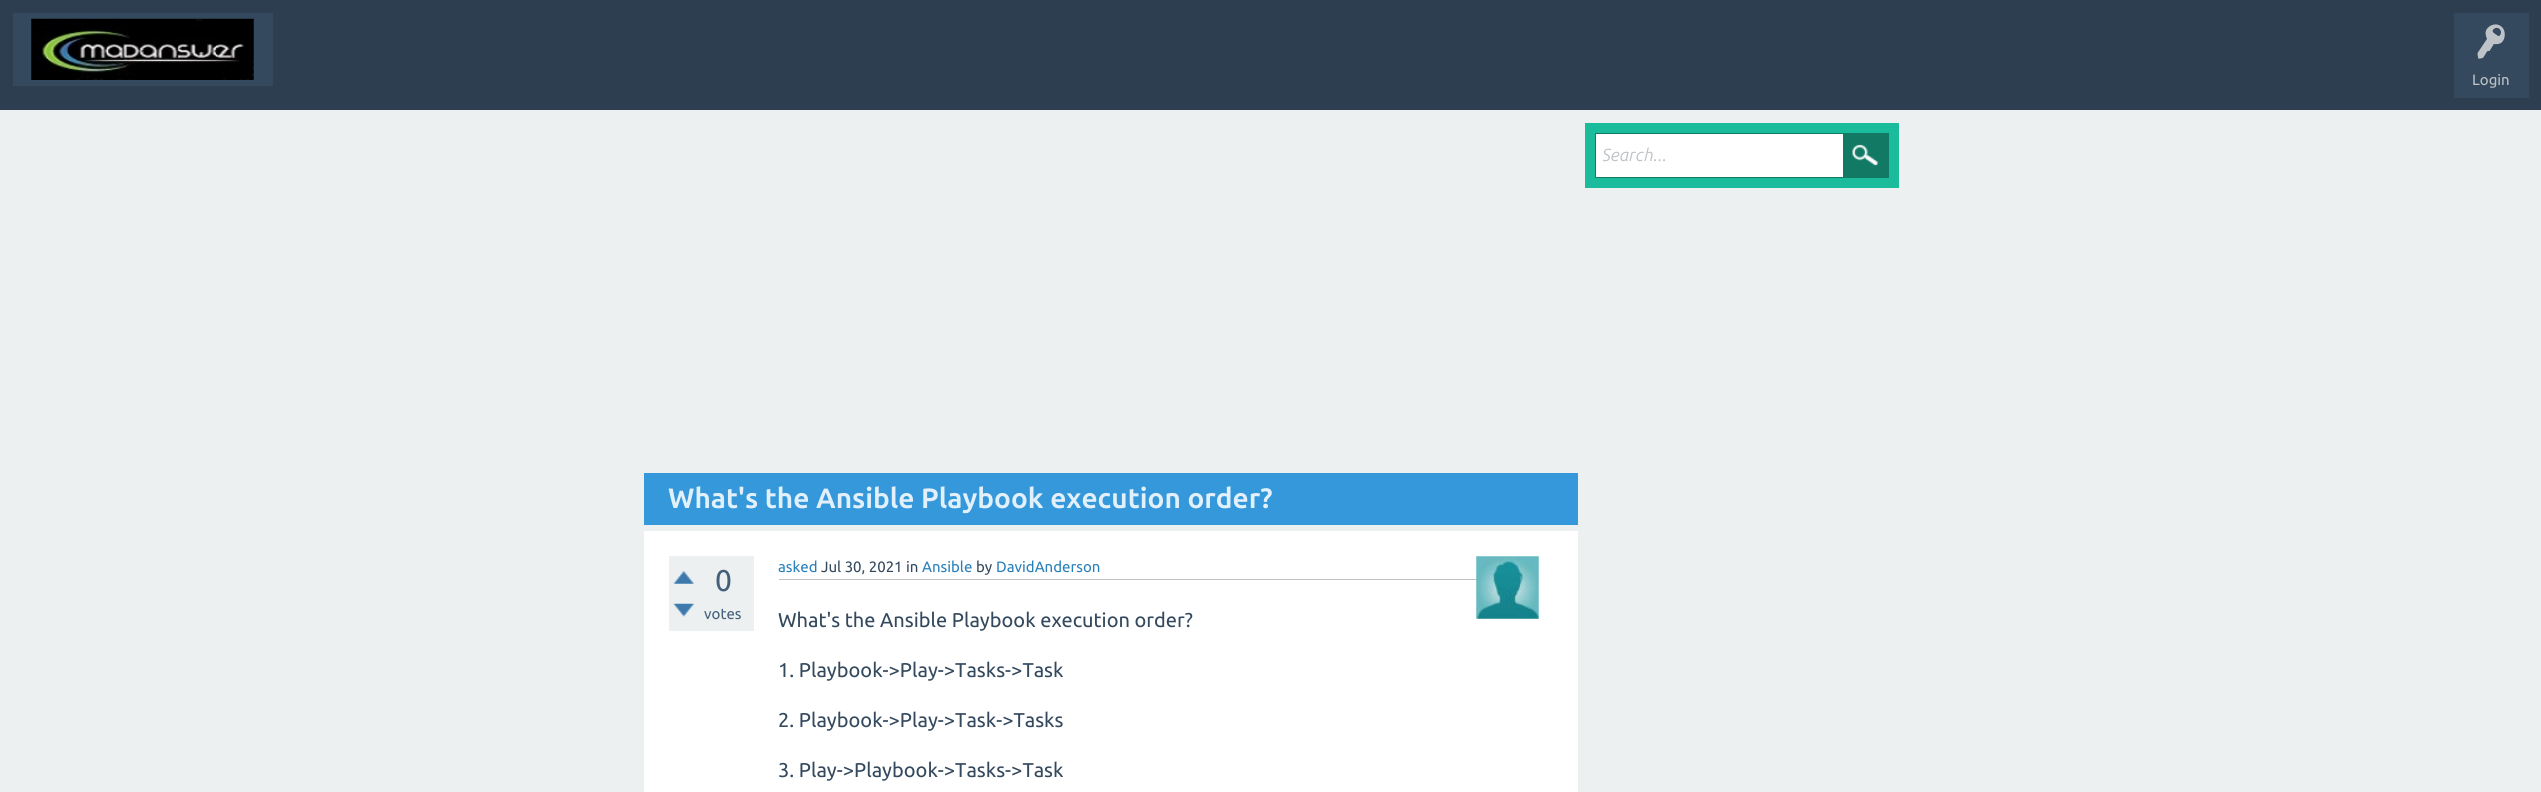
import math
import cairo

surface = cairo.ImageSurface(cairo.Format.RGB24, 2541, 792)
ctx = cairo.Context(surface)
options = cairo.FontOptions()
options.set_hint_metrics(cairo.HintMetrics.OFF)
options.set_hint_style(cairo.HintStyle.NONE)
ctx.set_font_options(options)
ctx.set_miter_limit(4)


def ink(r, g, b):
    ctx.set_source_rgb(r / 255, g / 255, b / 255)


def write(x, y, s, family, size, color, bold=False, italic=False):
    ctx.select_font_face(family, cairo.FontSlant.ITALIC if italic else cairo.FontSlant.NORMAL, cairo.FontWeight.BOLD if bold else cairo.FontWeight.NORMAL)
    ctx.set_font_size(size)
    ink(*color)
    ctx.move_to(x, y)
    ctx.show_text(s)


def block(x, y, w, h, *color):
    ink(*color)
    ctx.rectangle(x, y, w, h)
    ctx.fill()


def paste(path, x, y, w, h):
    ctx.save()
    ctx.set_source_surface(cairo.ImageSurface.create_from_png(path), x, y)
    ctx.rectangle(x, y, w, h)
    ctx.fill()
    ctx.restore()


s1 = dict(family="Ubuntu", size=15, color=(189, 195, 199))
s2 = dict(family="Ubuntu", size=17.5, color=(189, 195, 199), italic=True)
s3 = dict(family="Ubuntu", size=28, color=(225, 240, 250), bold=True)
s4 = dict(family="Ubuntu", size=30, color=(68, 95, 122))
s5 = dict(family="Ubuntu", size=15, color=(68, 95, 122))
s6 = dict(family="Ubuntu", size=15, color=(41, 128, 185))
s7 = dict(family="Ubuntu", size=15, color=(52, 73, 94))
s8 = dict(family="Ubuntu", size=20, color=(52, 73, 94))

ink(236, 240, 241)
ctx.paint()
block(0, 0, 2541, 110, 44, 62, 80)
block(13, 13, 260, 73, 52, 73, 94)
paste("pic1.png", 31, 18, 223, 62)
block(2454, 13, 75, 85, 52, 73, 94)
paste("pic2.png", 2477, 24, 28, 35)
write(2472, 85, "Login", **s1)
block(1585, 123, 314, 65, 26, 188, 156)
block(1596, 134, 247, 43, 255, 255, 255)
ctx.rectangle(1595.5, 133.5, 293, 44)
ink(17, 121, 100)
ctx.set_line_width(1)
ctx.stroke()
ctx.save()
ctx.rectangle(1603, 145, 235, 20)
ctx.clip()
write(1602, 161, "Search...", **s2)
ctx.restore()
block(1843, 134, 45, 43, 17, 121, 100)
paste("pic3.png", 1852, 144, 26, 22)
block(644, 473, 934, 52, 52, 152, 219)
write(668, 508, "What's the Ansible Playbook execution order?", **s3)
block(644, 531, 934, 261, 255, 255, 255)
block(669, 556, 85, 75, 236, 240, 241)
paste("pic4.png", 673, 571, 21, 13)
paste("pic5.png", 673, 603, 21, 14)
write(715, 591, "0", **s4)
write(704, 619, "votes", **s5)
block(779, 579, 760, 1, 189, 195, 199)
write(778, 572, "asked", **s6)
write(821, 572, "Jul 30, 2021 in", **s7)
write(922, 572, "Ansible", **s6)
write(976, 572, "by", **s7)
write(996, 572, "DavidAnderson", **s6)
paste("pic6.png", 1476, 556, 63, 63)
write(778, 627, "What's the Ansible Playbook execution order?", **s8)
write(778, 677, "1. Playbook->Play->Tasks->Task", **s8)
write(778, 727, "2. Playbook->Play->Task->Tasks", **s8)
write(778, 777, "3. Play->Playbook->Tasks->Task", **s8)
surface.write_to_png("screenshot.png")
